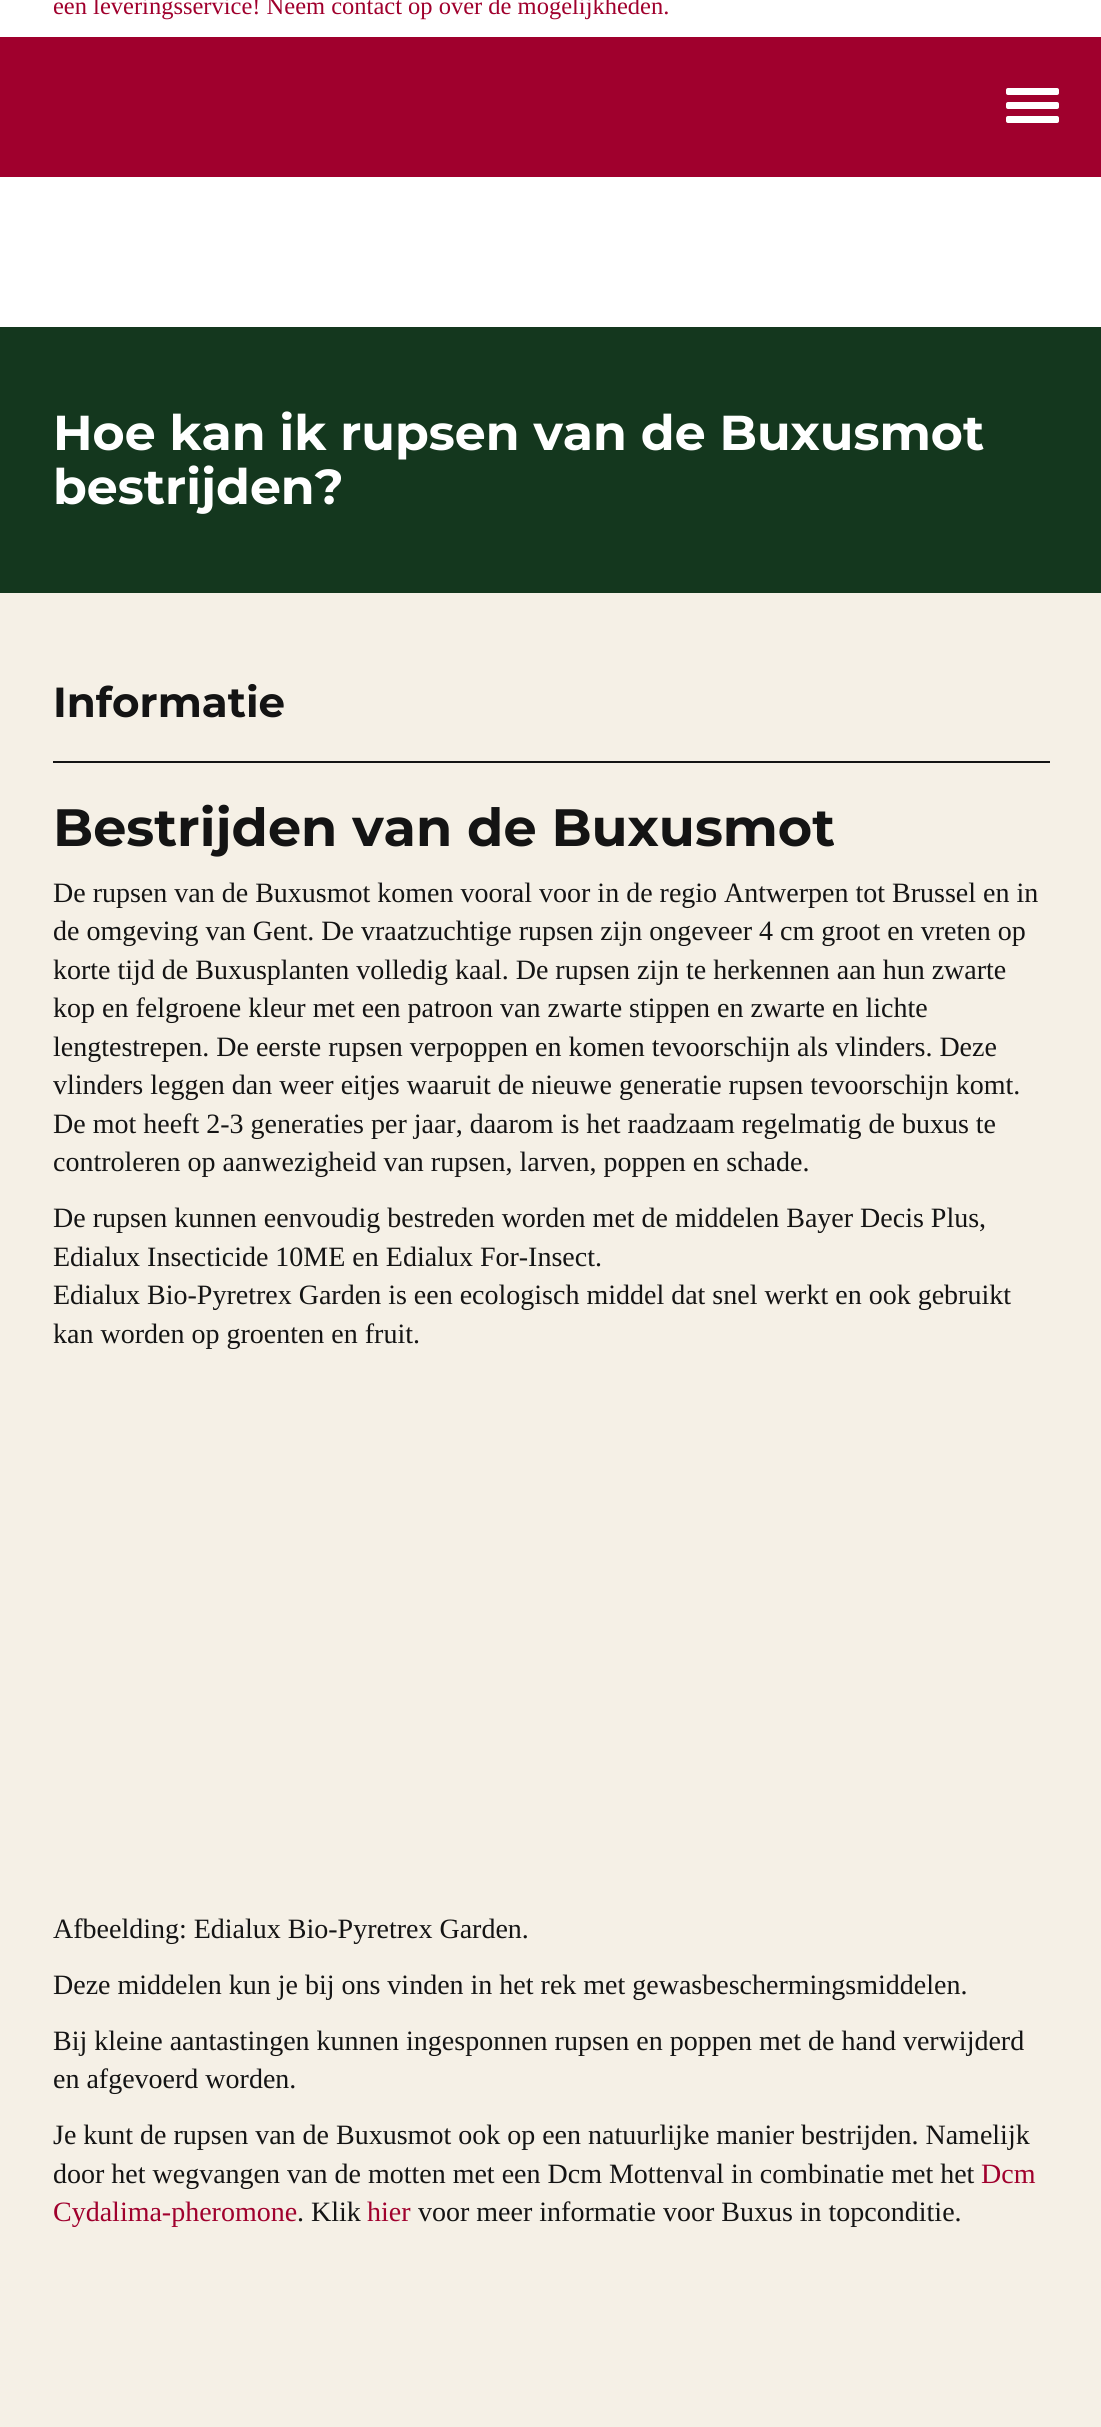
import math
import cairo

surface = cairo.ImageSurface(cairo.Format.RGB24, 1101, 2427)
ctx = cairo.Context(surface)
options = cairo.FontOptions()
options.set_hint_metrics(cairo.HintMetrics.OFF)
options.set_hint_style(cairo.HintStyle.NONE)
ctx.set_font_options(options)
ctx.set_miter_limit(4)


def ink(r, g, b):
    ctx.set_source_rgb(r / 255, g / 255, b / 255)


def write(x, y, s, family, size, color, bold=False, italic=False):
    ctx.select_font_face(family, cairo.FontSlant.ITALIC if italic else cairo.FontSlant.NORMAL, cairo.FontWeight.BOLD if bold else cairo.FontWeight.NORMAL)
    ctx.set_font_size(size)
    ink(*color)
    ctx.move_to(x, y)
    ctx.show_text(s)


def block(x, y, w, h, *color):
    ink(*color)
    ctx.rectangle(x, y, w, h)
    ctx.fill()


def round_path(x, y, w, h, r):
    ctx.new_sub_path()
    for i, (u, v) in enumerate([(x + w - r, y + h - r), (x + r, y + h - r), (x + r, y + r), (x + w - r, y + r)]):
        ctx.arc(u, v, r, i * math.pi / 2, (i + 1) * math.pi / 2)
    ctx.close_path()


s1 = dict(family="Liberation Serif", size=24.5, color=(160, 0, 45))
s2 = dict(family="Montserrat", size=49, color=(255, 255, 255), bold=True)
s3 = dict(family="Montserrat", size=42, color=(20, 20, 20), bold=True)
s4 = dict(family="Montserrat", size=52.5, color=(20, 20, 20), bold=True)
s5 = dict(family="Liberation Serif", size=28, color=(20, 20, 20))
s6 = dict(family="Liberation Serif", size=28, color=(160, 0, 45))

ink(255, 255, 255)
ctx.paint()
write(53, 14, "een leveringsservice! Neem contact op over de mogelijkheden.", **s1)
block(0, 37, 1101, 140, 160, 0, 45)
ink(255, 255, 255)
round_path(1006, 88, 53, 7, 2)
ctx.fill()
round_path(1006, 102, 53, 7, 2)
ctx.fill()
round_path(1006, 116, 53, 7, 2)
ctx.fill()
block(0, 327, 1101, 266, 20, 55, 30)
write(53, 450, "Hoe kan ik rupsen van de Buxusmot", **s2)
write(53, 504, "bestrijden?", **s2)
block(0, 593, 1101, 1834, 245, 240, 230)
write(53, 717, "Informatie", **s3)
block(53, 761, 997, 2, 20, 20, 20)
write(53, 846, "Bestrijden van de Buxusmot", **s4)
write(53, 902, "De rupsen van de Buxusmot komen vooral voor in de regio Antwerpen tot Brussel en in", **s5)
write(53, 940, "de omgeving van Gent. De vraatzuchtige rupsen zijn ongeveer 4 cm groot en vreten op", **s5)
write(53, 979, "korte tijd de Buxusplanten volledig kaal. De rupsen zijn te herkennen aan hun zwarte", **s5)
write(53, 1017, "kop en felgroene kleur met een patroon van zwarte stippen en zwarte en lichte", **s5)
write(53, 1056, "lengtestrepen. De eerste rupsen verpoppen en komen tevoorschijn als vlinders. Deze", **s5)
write(53, 1094, "vlinders leggen dan weer eitjes waaruit de nieuwe generatie rupsen tevoorschijn komt.", **s5)
write(53, 1133, "De mot heeft 2-3 generaties per jaar, daarom is het raadzaam regelmatig de buxus te", **s5)
write(53, 1171, "controleren op aanwezigheid van rupsen, larven, poppen en schade.", **s5)
write(53, 1227, "De rupsen kunnen eenvoudig bestreden worden met de middelen Bayer Decis Plus,", **s5)
write(53, 1266, "Edialux Insecticide 10ME en Edialux For-Insect.", **s5)
write(53, 1304, "Edialux Bio-Pyretrex Garden is een ecologisch middel dat snel werkt en ook gebruikt", **s5)
write(53, 1343, "kan worden op groenten en fruit.", **s5)
write(53, 1938, "Afbeelding: Edialux Bio-Pyretrex Garden.", **s5)
write(53, 1994, "Deze middelen kun je bij ons vinden in het rek met gewasbeschermingsmiddelen.", **s5)
write(53, 2050, "Bij kleine aantastingen kunnen ingesponnen rupsen en poppen met de hand verwijderd", **s5)
write(53, 2088, "en afgevoerd worden.", **s5)
write(53, 2144, "Je kunt de rupsen van de Buxusmot ook op een natuurlijke manier bestrijden. Namelijk", **s5)
write(53, 2183, "door het wegvangen van de motten met een Dcm Mottenval in combinatie met het", **s5)
write(981, 2183, "Dcm", **s6)
write(53, 2221, "Cydalima-pheromone", **s6)
write(297, 2221, ". Klik", **s5)
write(367, 2221, "hier", **s6)
write(418, 2221, "voor meer informatie voor Buxus in topconditie.", **s5)
surface.write_to_png("screenshot.png")
